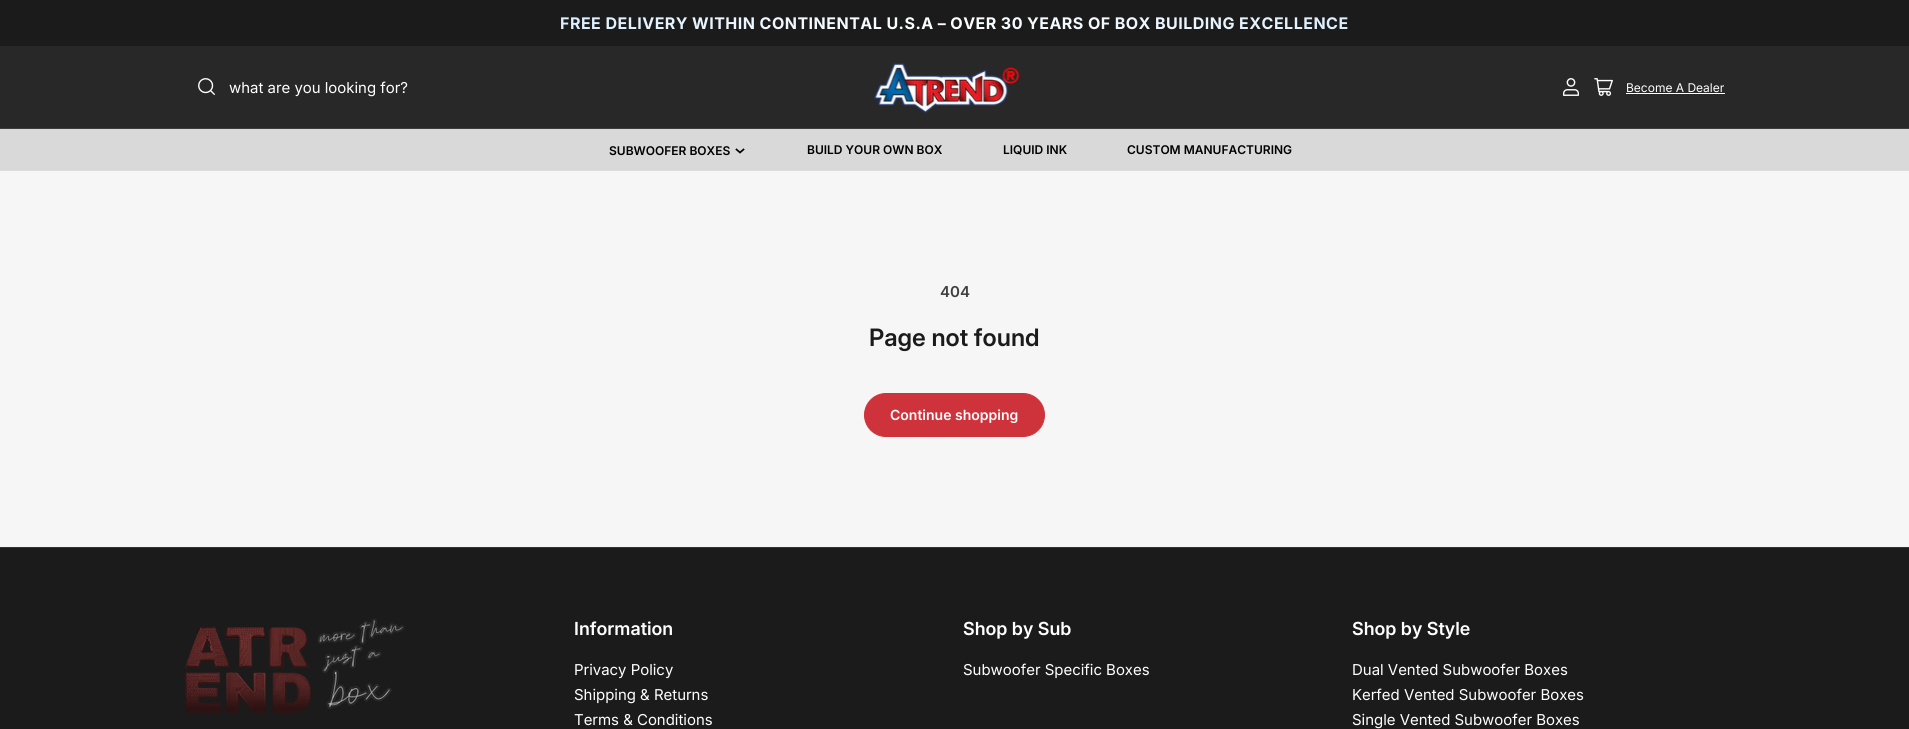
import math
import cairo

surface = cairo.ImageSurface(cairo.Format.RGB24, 1909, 729)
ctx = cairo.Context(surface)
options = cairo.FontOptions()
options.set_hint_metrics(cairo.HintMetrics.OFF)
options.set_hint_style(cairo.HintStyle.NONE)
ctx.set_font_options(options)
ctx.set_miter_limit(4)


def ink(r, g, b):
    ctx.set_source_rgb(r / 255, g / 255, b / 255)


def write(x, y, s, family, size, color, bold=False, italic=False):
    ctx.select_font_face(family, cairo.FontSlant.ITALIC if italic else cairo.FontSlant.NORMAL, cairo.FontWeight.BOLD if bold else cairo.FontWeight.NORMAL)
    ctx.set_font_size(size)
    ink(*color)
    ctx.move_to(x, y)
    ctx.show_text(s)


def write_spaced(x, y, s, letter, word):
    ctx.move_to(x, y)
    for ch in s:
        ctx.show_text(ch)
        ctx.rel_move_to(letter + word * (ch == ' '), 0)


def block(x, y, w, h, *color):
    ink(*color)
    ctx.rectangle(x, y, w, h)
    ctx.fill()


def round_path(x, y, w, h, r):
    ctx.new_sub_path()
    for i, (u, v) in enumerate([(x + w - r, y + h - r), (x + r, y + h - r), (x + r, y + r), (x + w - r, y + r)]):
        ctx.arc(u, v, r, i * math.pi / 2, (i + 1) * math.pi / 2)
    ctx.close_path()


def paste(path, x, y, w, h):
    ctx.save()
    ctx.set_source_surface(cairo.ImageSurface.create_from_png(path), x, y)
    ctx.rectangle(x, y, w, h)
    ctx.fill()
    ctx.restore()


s1 = dict(family="Inter", size=15, color=(255, 255, 255))
s2 = dict(family="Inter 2", size=12, color=(255, 255, 255))
s3 = dict(family="Inter SemiBold", size=12, color=(0, 0, 0))
s4 = dict(family="Inter SemiBold", size=15, color=(64, 64, 64))
s5 = dict(family="Inter 2 SemiBold", size=24, color=(27, 27, 27))
s6 = dict(family="Inter SemiBold", size=14, color=(255, 255, 255))
s7 = dict(family="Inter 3 SemiBold", size=18, color=(255, 255, 255))

ink(246, 246, 246)
ctx.paint()
block(0, 0, 1909, 46, 27, 27, 27)
ctx.select_font_face("Inter", cairo.FontSlant.NORMAL, cairo.FontWeight.BOLD)
ctx.set_font_size(16)
gradient = cairo.LinearGradient(560, 23, 1349, 23)
gradient.add_color_stop_rgba(0, 0.859, 0.937, 1, 1)
gradient.add_color_stop_rgba(0.5, 1, 1, 1, 1)
gradient.add_color_stop_rgba(1, 0.859, 0.937, 1, 1)
ctx.set_source(gradient)
write_spaced(560, 29, "FREE DELIVERY WITHIN CONTINENTAL U.S.A – OVER 30 YEARS OF BOX BUILDING EXCELLENCE", 0.5, -0.25)
block(0, 46, 1909, 82, 40, 40, 40)
block(0, 128, 1909, 1, 62, 62, 62)
paste("pic1.png", 198, 78, 17, 17)
write(229, 93, "what are you looking for?", **s1)
paste("pic2.png", 873, 63, 147, 51)
paste("pic3.png", 1563, 78, 16, 18)
paste("pic4.png", 1594, 78, 19, 18)
write(1626, 92, "Become A Dealer", **s2)
block(1626, 93, 99, 1, 255, 255, 255)
block(0, 129, 1909, 41, 217, 217, 217)
block(0, 170, 1909, 1, 221, 221, 221)
write(609, 155, "SUBWOOFER BOXES", **s3)
ctx.new_path()
ctx.move_to(743.5, 149.5)
ctx.line_to(740, 152.5)
ctx.line_to(736.5, 149.5)
ctx.set_line_width(1.7)
ctx.set_line_cap(cairo.LineCap.SQUARE)
ctx.stroke()
write(807, 154, "BUILD YOUR OWN BOX", **s3)
write(1003, 154, "LIQUID INK", **s3)
write(1127, 154, "CUSTOM MANUFACTURING", **s3)
write(940, 297, "404", **s4)
write(869, 346, "Page not found", **s5)
ink(206, 51, 60)
round_path(864.5, 393.5, 180, 43, 21.5)
ctx.fill_preserve()
ctx.set_line_width(1)
ctx.set_line_cap(cairo.LineCap.BUTT)
ctx.stroke()
write(890, 420, "Continue shopping", **s6)
block(0, 548, 1909, 181, 27, 27, 27)
block(0, 547, 1909, 1, 50, 50, 50)
paste("pic5.png", 185, 618, 220, 95)
write(574, 635, "Information", **s7)
write(574, 675, "Privacy Policy", **s1)
write(574, 700, "Shipping & Returns", **s1)
write(574, 725, "Terms & Conditions", **s1)
write(963, 635, "Shop by Sub", **s7)
write(963, 675, "Subwoofer Specific Boxes", **s1)
write(1352, 635, "Shop by Style", **s7)
write(1352, 675, "Dual Vented Subwoofer Boxes", **s1)
write(1352, 700, "Kerfed Vented Subwoofer Boxes", **s1)
write(1352, 725, "Single Vented Subwoofer Boxes", **s1)
surface.write_to_png("screenshot.png")
